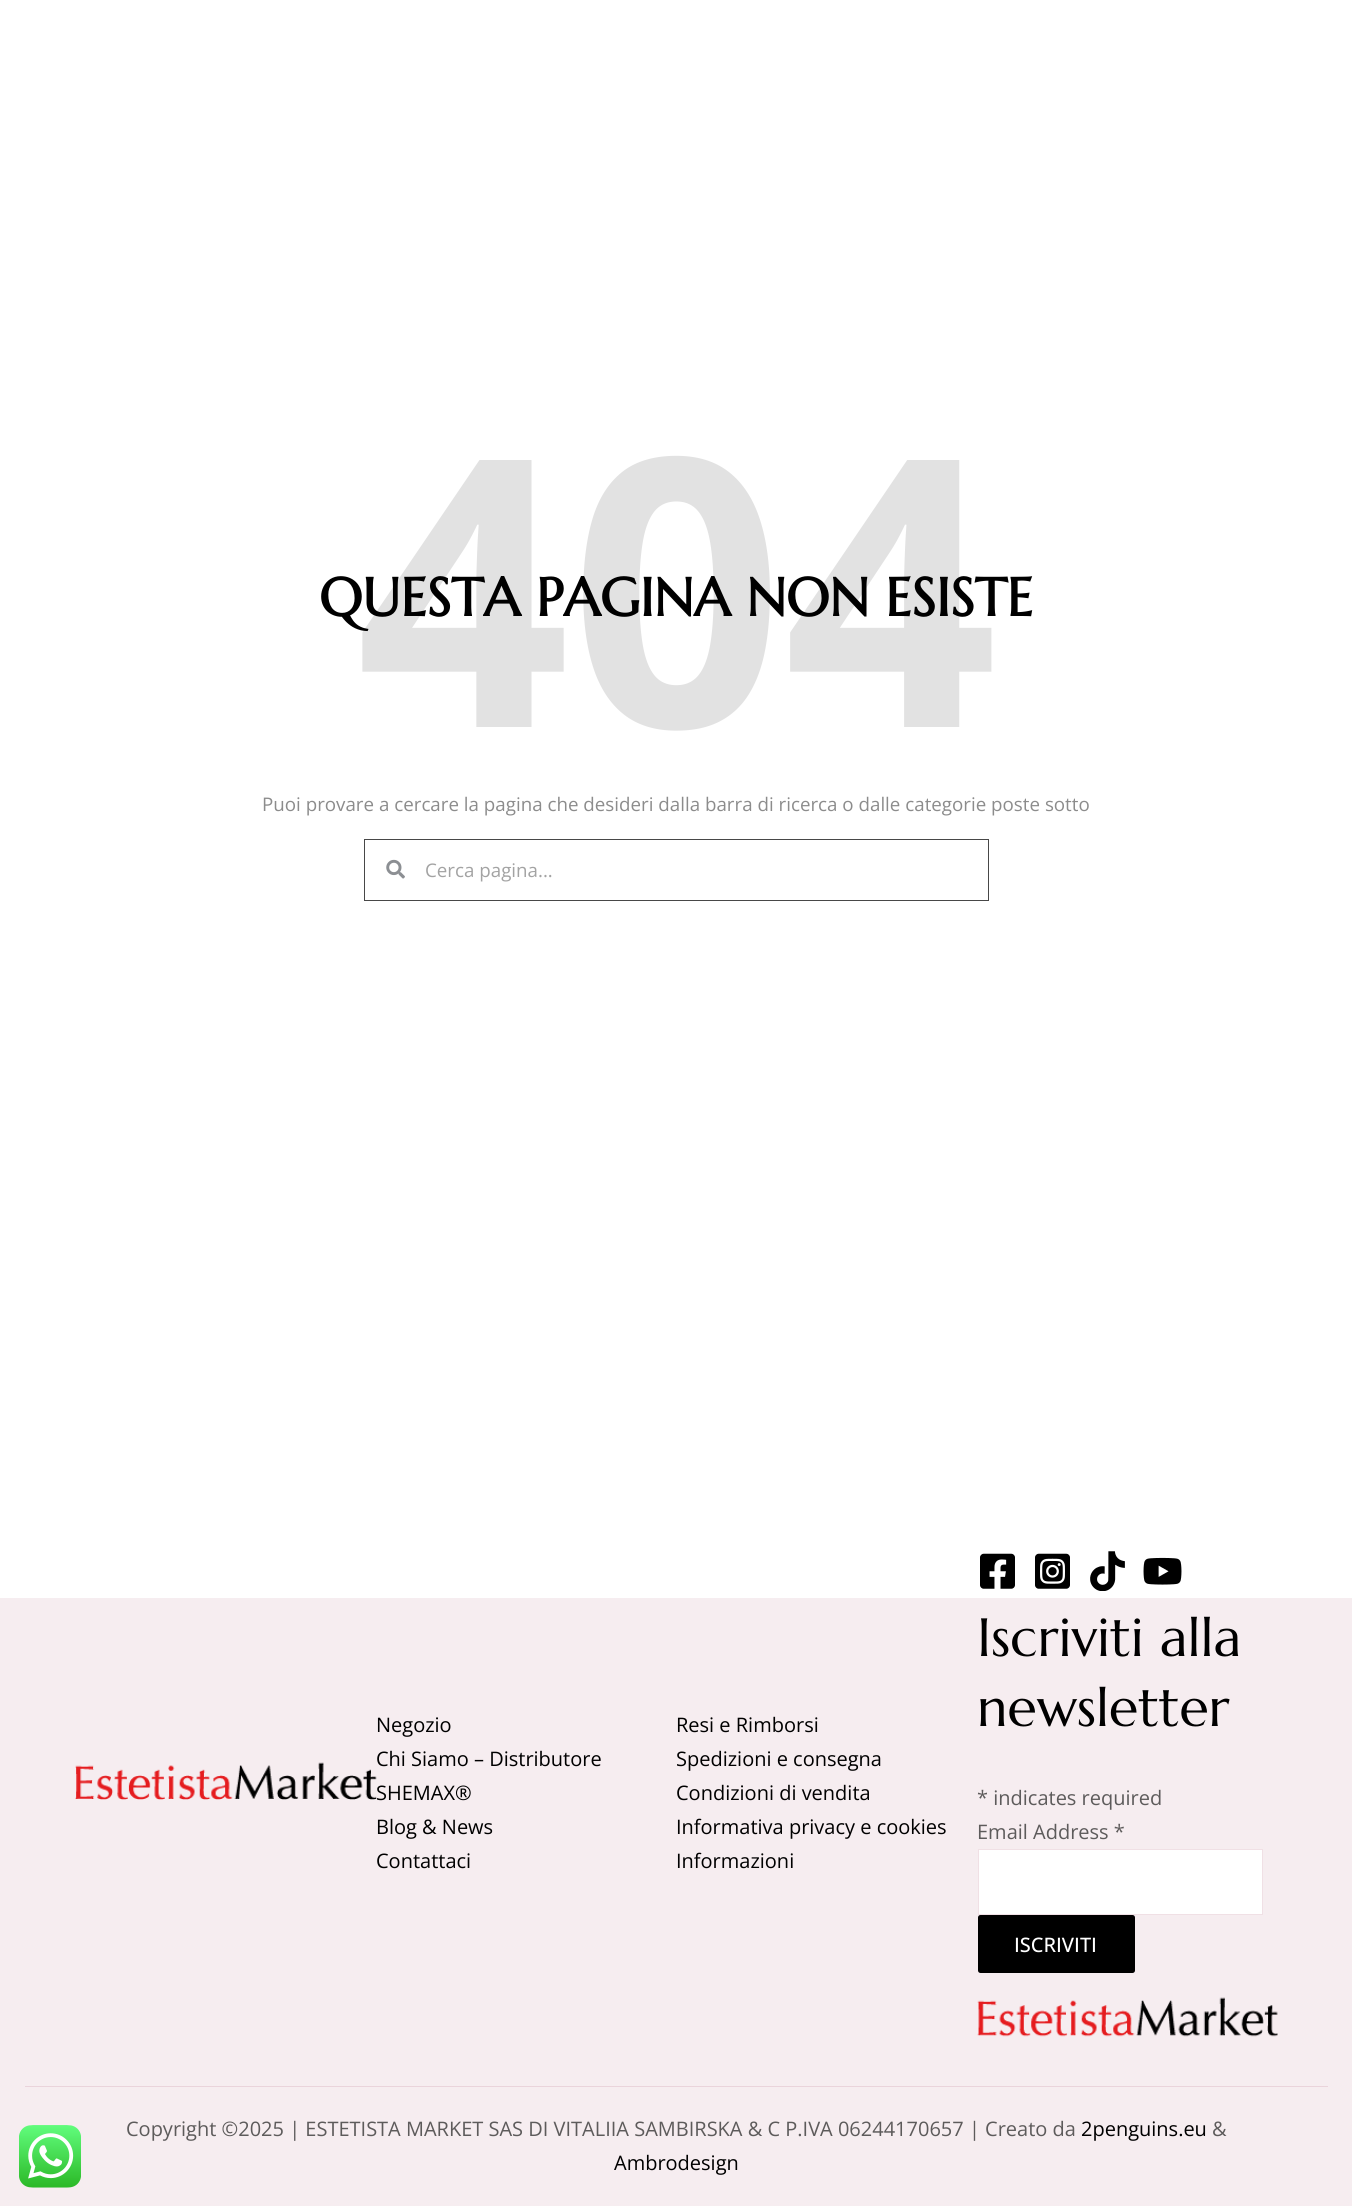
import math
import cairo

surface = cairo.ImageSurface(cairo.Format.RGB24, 1352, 2206)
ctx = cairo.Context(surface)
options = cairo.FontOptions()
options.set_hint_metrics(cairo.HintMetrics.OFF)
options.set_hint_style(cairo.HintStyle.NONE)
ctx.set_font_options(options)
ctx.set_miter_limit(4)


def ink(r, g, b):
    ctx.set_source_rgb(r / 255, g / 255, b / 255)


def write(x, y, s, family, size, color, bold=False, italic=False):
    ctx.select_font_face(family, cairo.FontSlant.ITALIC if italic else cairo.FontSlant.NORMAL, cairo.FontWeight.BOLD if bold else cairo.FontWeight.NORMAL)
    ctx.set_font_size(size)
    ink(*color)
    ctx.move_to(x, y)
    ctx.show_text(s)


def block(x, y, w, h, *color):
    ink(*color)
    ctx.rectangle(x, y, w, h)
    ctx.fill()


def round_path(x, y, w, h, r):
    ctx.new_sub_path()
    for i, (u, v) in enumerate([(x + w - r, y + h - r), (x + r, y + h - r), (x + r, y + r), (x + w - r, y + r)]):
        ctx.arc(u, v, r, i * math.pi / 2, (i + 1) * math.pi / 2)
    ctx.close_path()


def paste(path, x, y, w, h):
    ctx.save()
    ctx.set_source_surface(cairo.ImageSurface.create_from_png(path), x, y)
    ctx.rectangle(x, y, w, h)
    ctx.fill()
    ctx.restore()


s1 = dict(family="Open Sans", size=374, color=(226, 226, 226), bold=True)
s2 = dict(family="Marcellus", size=53.75, color=(0, 0, 0), bold=True)
s3 = dict(family="Open Sans", size=18.75, color=(140, 140, 140))
s4 = dict(family="Open Sans", size=18.75, color=(163, 163, 163))
s5 = dict(family="Open Sans", size=20, color=(0, 0, 0))
s6 = dict(family="Marcellus", size=53.75, color=(0, 0, 0))
s7 = dict(family="Open Sans", size=20, color=(93, 91, 91))
s8 = dict(family="Open Sans Medium", size=20, color=(255, 255, 255))

ink(246, 237, 240)
ctx.paint()
paste("pic1.png", 19, 2125, 62, 63)
block(0, 0, 1352, 1598, 255, 255, 255)
write(356, 727, "404", **s1)
write(319, 616, "QUESTA PAGINA NON ESISTE", **s2)
write(262, 811, "Puoi provare a cercare la pagina che desideri dalla barra di ricerca o dalle categorie poste sotto", **s3)
ctx.rectangle(364.5, 839.5, 624, 61)
ink(71, 71, 71)
ctx.set_line_width(1)
ctx.stroke()
paste("pic2.png", 386, 859, 19, 20)
write(425, 877, "Cerca pagina...", **s4)
paste("pic3.png", 75, 1762, 302, 38)
write(376, 1732, "Negozio", **s5)
write(376, 1766, "Chi Siamo – Distributore", **s5)
write(376, 1800, "SHEMAX®", **s5)
write(376, 1834, "Blog & News", **s5)
write(376, 1868, "Contattaci", **s5)
write(676, 1732, "Resi e Rimborsi", **s5)
write(676, 1766, "Spedizioni e consegna", **s5)
write(676, 1800, "Condizioni di vendita", **s5)
write(676, 1834, "Informativa privacy e cookies", **s5)
write(676, 1868, "Informazioni", **s5)
paste("pic4.png", 980, 1553, 35, 36)
paste("pic5.png", 1035, 1553, 35, 36)
paste("pic6.png", 1090, 1551, 35, 40)
paste("pic7.png", 1143, 1557, 39, 28)
write(977, 1656, "Iscriviti alla", **s6)
write(977, 1726, "newsletter", **s6)
write(977, 1805, "* indicates required", **s7)
write(977, 1839, "Email Address *", **s7)
ink(255, 255, 255)
ctx.rectangle(978.5, 1849.5, 284, 65)
ctx.fill_preserve()
ink(240, 224, 229)
ctx.stroke()
ink(0, 0, 0)
round_path(978, 1915, 157, 58, 2.5)
ctx.fill()
write(1014, 1952, "ISCRIVITI", **s8)
paste("pic8.png", 977, 1997, 301, 40)
block(25, 2086, 1303, 1, 234, 212, 219)
write(126, 2136, "Copyright ©2025 | ESTETISTA MARKET SAS DI VITALIIA SAMBIRSKA & C P.IVA 06244170657 | Creato da", **s7)
write(1081, 2136, "2penguins.eu", **s5)
write(1212, 2136, "&", **s7)
write(614, 2170, "Ambrodesign", **s5)
surface.write_to_png("screenshot.png")
